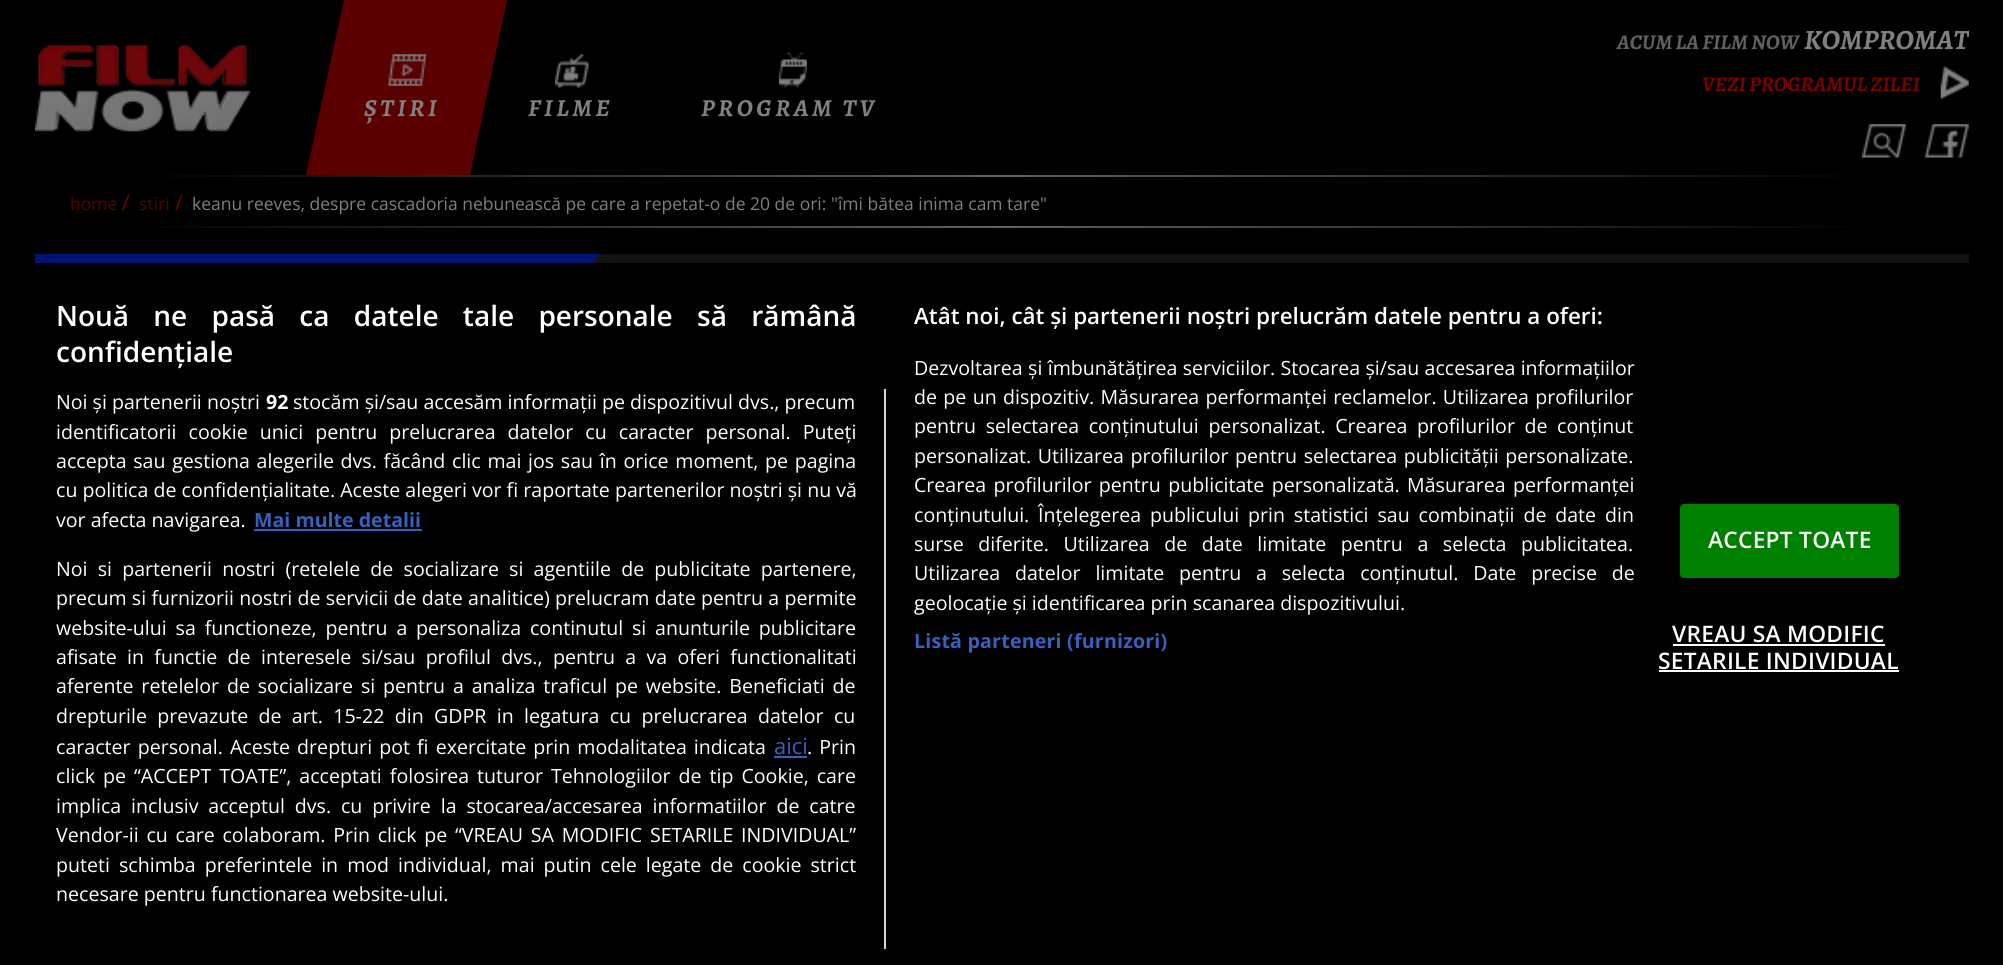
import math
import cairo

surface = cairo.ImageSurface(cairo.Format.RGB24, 2003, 965)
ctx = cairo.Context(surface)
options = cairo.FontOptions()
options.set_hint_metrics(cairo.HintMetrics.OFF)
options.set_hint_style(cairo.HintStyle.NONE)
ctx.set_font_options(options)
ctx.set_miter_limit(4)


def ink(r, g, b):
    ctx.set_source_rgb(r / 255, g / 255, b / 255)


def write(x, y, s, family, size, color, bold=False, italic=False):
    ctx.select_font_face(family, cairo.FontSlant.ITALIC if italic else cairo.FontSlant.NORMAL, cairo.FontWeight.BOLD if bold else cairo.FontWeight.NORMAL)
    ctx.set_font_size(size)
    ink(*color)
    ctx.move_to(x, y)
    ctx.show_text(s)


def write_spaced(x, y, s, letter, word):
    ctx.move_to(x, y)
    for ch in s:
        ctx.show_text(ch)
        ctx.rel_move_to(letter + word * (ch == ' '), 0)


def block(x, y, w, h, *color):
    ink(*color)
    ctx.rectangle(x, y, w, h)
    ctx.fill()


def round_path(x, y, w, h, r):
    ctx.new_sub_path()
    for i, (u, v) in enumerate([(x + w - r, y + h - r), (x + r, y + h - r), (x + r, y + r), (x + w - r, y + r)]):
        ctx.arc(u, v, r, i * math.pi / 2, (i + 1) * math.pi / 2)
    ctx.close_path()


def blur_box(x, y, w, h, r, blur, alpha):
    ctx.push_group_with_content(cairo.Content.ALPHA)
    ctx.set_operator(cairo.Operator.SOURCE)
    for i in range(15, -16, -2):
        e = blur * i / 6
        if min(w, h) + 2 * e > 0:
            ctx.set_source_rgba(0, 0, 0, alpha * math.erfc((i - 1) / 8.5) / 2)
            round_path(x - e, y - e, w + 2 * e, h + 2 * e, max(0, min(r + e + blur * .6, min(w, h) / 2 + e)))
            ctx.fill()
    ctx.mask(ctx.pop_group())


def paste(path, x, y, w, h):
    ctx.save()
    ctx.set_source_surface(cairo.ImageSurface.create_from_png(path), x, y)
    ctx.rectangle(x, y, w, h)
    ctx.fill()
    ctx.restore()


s1 = dict(family="Alegreya SC", size=21, color=(97, 97, 97), bold=True, italic=True)
s2 = dict(family="Alegreya SC", size=28, color=(128, 128, 128), bold=True, italic=True)
s3 = dict(family="Alegreya SC", size=21, color=(120, 0, 0), bold=True, italic=True)
s4 = dict(family="Open Sans", size=17.5, color=(90, 0, 0))
s5 = dict(family="Open Sans", size=21, color=(120, 0, 0))
s6 = dict(family="Open Sans", size=17.5, color=(128, 128, 128))
s7 = dict(family="Open Sans SemiBold", size=28, color=(255, 255, 255))
s8 = dict(family="Open Sans SemiBold", size=22.4, color=(255, 255, 255))
s9 = dict(family="Open Sans", size=19.6, color=(255, 255, 255))
s10 = dict(family="Open Sans", size=19.6, color=(255, 255, 255), bold=True)
s11 = dict(family="Open Sans", size=19.6, color=(56, 96, 190), bold=True)
s12 = dict(family="Open Sans", size=22, color=(56, 96, 190))

ink(0, 0, 0)
ctx.paint()
paste("pic1.png", 35, 45, 216, 87)
write(1617, 49, "ACUM LA FILM NOW", **s1)
ctx.save()
ctx.rectangle(1360, 26, 609, 30)
ctx.clip()
write(1804, 49, "KOMPROMAT", **s2)
ctx.restore()
write(1702, 91, "VEZI PROGRAMUL ZILEI", **s3)
paste("pic2.png", 1940, 66, 29, 34)
ink(90, 0, 0)
ctx.new_path()
ctx.move_to(344, 0)
ctx.line_to(507, 0)
ctx.line_to(470, 175)
ctx.line_to(306, 175)
ctx.close_path()
ctx.fill()
paste("pic3.png", 387, 54, 41, 32)
ctx.set_font_size(24.5)
ink(128, 128, 128)
write_spaced(364, 116, "ȘTIRI", 3.5, 0)
paste("pic4.png", 554, 54, 35, 34)
write_spaced(528, 116, "FILME", 3.5, 0)
paste("pic5.png", 778, 52, 29, 36)
write_spaced(701, 116, "PROGRAM TV", 3.5, 0)
paste("pic6.png", 1862, 124, 44, 34)
paste("pic7.png", 1924, 124, 45, 34)
gradient = cairo.LinearGradient(35, 227, 1969, 227)
gradient.add_color_stop_rgba(0.05, 0, 0, 0, 1)
gradient.add_color_stop_rgba(0.5, 0.38, 0.38, 0.38, 1)
gradient.add_color_stop_rgba(0.95, 0, 0, 0, 1)
ctx.set_source(gradient)
ctx.rectangle(154, 226, 1696, 2)
ctx.fill()
gradient = cairo.LinearGradient(35, 176, 1969, 176)
gradient.add_color_stop_rgba(0.05, 0, 0, 0, 1)
gradient.add_color_stop_rgba(0.5, 0.38, 0.38, 0.38, 1)
gradient.add_color_stop_rgba(0.95, 0, 0, 0, 1)
ctx.set_source(gradient)
ctx.rectangle(154, 175, 1696, 2)
ctx.fill()
write(70, 210, "home", **s4)
write(122, 210, "/", **s5)
write(139, 210, "stiri", **s4)
write(175, 210, "/", **s5)
write(192, 210, "keanu reeves, despre cascadoria nebunească pe care a repetat-o de 20 de ori: \"îmi bătea inima cam tare\"", **s6)
block(35, 254, 546, 9, 0, 22, 128)
block(593, 254, 1376, 9, 20, 20, 20)
paste("pic8.png", 581, 254, 19, 9)
ink(0, 0, 0)
blur_box(0, 263, 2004, 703, 0, 16, 0.2)
ctx.select_font_face("Open Sans SemiBold")
ctx.set_font_size(28)
ink(255, 255, 255)
write_spaced(56, 326, "Nouă ne pasă ca datele tale personale să rămână", 0, 17)
write(56, 362, "confidențiale", **s7)
write(914, 324, "Atât noi, cât și partenerii noștri prelucrăm datele pentru a oferi:", **s8)
ctx.select_font_face("Open Sans")
ctx.set_font_size(19.6)
write_spaced(914, 375, "Dezvoltarea și îmbunătățirea serviciilor. Stocarea și/sau accesarea informațiilor", 0, 0.25)
write_spaced(914, 404, "de pe un dispozitiv. Măsurarea performanței reclamelor. Utilizarea profilurilor", 0, 1.25)
write_spaced(914, 433, "pentru selectarea conținutului personalizat. Crearea profilurilor de conținut", 0, 4.5)
write_spaced(914, 463, "personalizat. Utilizarea profilurilor pentru selectarea publicității personalizate.", 0, 1.5)
write_spaced(914, 492, "Crearea profilurilor pentru publicitate personalizată. Măsurarea performanței", 0, 2.25)
write_spaced(914, 522, "conținutului. Înțelegerea publicului prin statistici sau combinații de date din", 0, 3.75)
write_spaced(914, 551, "surse diferite. Utilizarea de date limitate pentru a selecta publicitatea.", 0, 9.5)
write_spaced(914, 580, "Utilizarea datelor limitate pentru a selecta conținutul. Date precise de", 0, 9.75)
write(914, 610, "geolocație și identificarea prin scanarea dispozitivului.", **s9)
ctx.select_font_face("Open Sans", cairo.FontSlant.NORMAL, cairo.FontWeight.BOLD)
ink(56, 96, 190)
write_spaced(914, 648, "Listă parteneri (furnizori)", 0.2, 0)
block(884, 389, 2, 560, 216, 216, 216)
write(56, 409, "Noi și partenerii noștri", **s9)
write(266, 409, "92", **s10)
write(293, 409, "stocăm și/sau accesăm informații pe dispozitivul dvs., precum", **s9)
write_spaced(56, 439, "identificatorii cookie unici pentru prelucrarea datelor cu caracter personal. Puteți", 0, 7)
write_spaced(56, 468, "accepta sau gestiona alegerile dvs. făcând clic mai jos sau în orice moment, pe pagina", 0, 1.6)
write(56, 497, "cu politica de confidențialitate. Aceste alegeri vor fi raportate partenerilor noștri și nu vă", **s9)
write(56, 527, "vor afecta navigarea.", **s9)
write(254, 527, "Mai multe detalii", **s11)
block(254, 529, 168, 2, 56, 96, 190)
ctx.select_font_face("Open Sans")
ink(255, 255, 255)
write_spaced(56, 576, "Noi si partenerii nostri (retelele de socializare si agentiile de publicitate partenere,", 0, 5.1)
write_spaced(56, 605, "precum si furnizorii nostri de servicii de date analitice) prelucram date pentru a permite", 0, 0.2)
write_spaced(56, 635, "website-ului sa functioneze, pentru a personaliza continutul si anunturile publicitare", 0, 3.75)
write_spaced(56, 664, "afisate in functie de interesele si/sau profilul dvs., pentru a va oferi functionalitati", 0, 5.25)
write_spaced(56, 693, "aferente retelelor de socializare si pentru a analiza traficul pe website. Beneficiati de", 0, 2.75)
write_spaced(56, 723, "drepturile prevazute de art. 15-22 din GDPR in legatura cu prelucrarea datelor cu", 0, 5.25)
write_spaced(56, 754, "caracter personal. Aceste drepturi pot fi exercitate prin modalitatea indicata", 0, 2)
write(774, 754, "aici", **s12)
block(774, 756, 33, 2, 56, 96, 190)
ctx.set_font_size(19.6)
ink(255, 255, 255)
write_spaced(807, 754, ". Prin", 0, 2)
write_spaced(56, 783, "click pe “ACCEPT TOATE”, acceptati folosirea tuturor Tehnologiilor de tip Cookie, care", 0, 2.9)
write_spaced(56, 813, "implica inclusiv acceptul dvs. cu privire la stocarea/accesarea informatiilor de catre", 0, 4.75)
write_spaced(56, 842, "Vendor-ii cu care colaboram. Prin click pe “VREAU SA MODIFIC SETARILE INDIVIDUAL”", 0, 2.6)
write_spaced(56, 872, "puteti schimba preferintele in mod individual, mai putin cele legate de cookie strict", 0, 3.9)
write(56, 901, "necesare pentru functionarea website-ului.", **s9)
ink(0, 128, 0)
round_path(1681, 505, 217, 72, 3)
ctx.fill_preserve()
ctx.stroke()
ctx.select_font_face("Open Sans SemiBold")
ctx.set_font_size(22.75)
ink(255, 255, 255)
write_spaced(1708, 548, "ACCEPT TOATE", 0.25, 0)
write_spaced(1672, 642, "VREAU SA MODIFIC", 0.25, 0)
block(1673, 644, 212, 2, 255, 255, 255)
write_spaced(1658, 669, "SETARILE INDIVIDUAL", 0.25, 0)
block(1659, 670, 240, 2, 255, 255, 255)
surface.write_to_png("screenshot.png")
